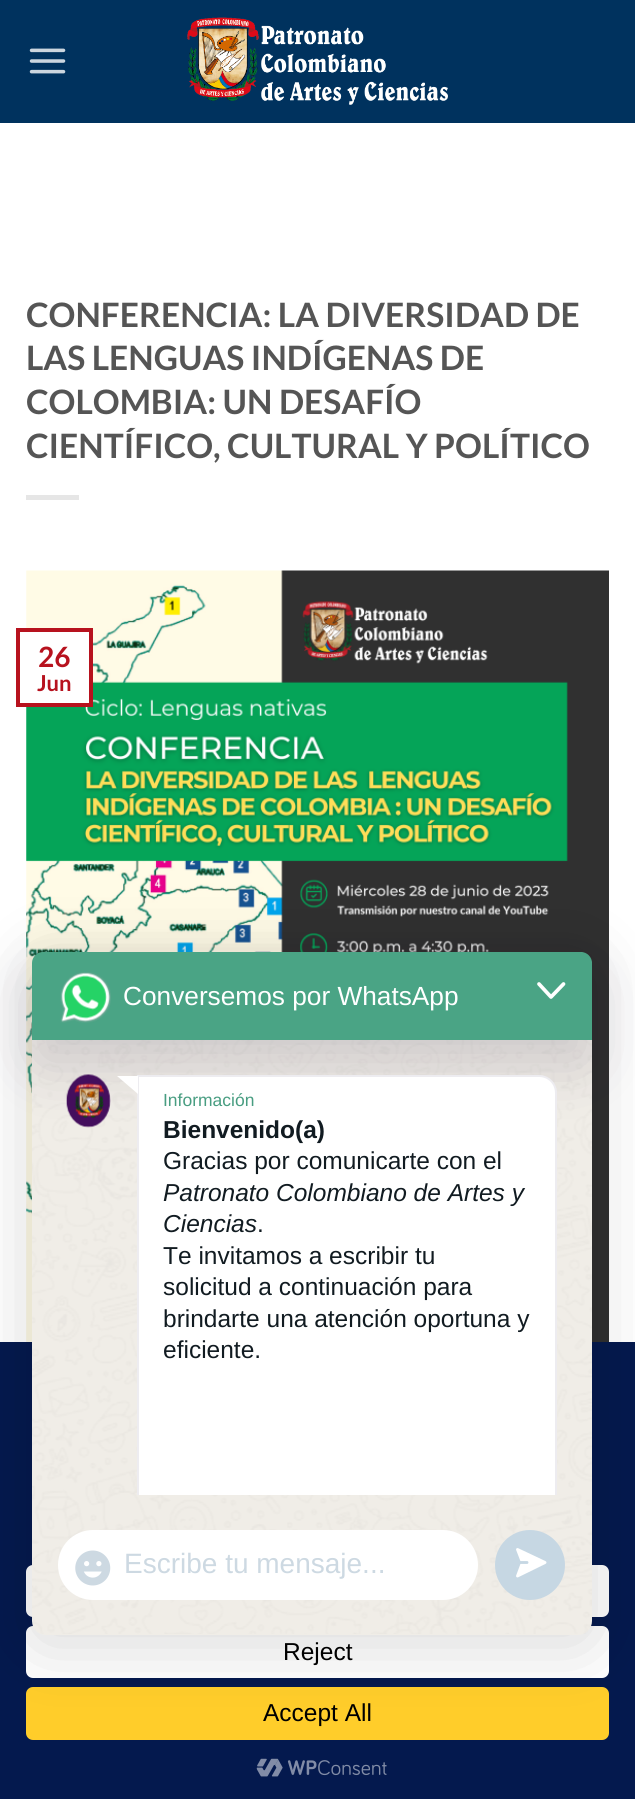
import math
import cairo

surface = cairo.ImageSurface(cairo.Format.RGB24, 635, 1799)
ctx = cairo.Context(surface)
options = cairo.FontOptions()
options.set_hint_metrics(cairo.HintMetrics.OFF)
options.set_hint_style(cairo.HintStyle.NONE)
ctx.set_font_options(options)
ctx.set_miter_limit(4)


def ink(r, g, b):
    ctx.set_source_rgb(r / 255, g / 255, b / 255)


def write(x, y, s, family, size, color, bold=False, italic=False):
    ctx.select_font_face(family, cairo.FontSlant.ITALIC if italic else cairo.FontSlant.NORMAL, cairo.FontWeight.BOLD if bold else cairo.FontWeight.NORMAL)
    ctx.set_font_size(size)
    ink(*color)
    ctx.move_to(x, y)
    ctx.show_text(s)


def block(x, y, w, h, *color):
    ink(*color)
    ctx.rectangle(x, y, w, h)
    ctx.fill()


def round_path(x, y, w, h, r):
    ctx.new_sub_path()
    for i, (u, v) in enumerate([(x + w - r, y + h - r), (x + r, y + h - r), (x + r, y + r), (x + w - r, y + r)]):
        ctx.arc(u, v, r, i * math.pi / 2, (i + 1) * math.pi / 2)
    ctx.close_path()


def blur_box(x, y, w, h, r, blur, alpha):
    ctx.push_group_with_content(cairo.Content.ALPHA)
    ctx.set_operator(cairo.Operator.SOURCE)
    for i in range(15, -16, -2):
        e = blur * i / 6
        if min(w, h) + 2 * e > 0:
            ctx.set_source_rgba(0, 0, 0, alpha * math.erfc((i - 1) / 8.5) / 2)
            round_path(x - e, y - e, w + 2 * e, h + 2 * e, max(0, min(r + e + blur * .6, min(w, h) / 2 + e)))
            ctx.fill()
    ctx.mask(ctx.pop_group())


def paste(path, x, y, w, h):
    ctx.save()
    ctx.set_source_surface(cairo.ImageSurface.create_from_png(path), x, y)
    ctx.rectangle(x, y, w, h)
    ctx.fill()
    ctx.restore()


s1 = dict(family="Lato", size=33.6, color=(85, 85, 85), bold=True)
s2 = dict(family="Lato", size=28, color=(183, 18, 30), bold=True)
s3 = dict(family="Lato", size=22, color=(183, 18, 30), bold=True)
s4 = dict(family="Liberation Sans", size=26.25, color=(255, 255, 255))
s5 = dict(family="Liberation Sans", size=17.5, color=(72, 157, 129))
s6 = dict(family="Liberation Sans", size=24.5, color=(17, 27, 33), bold=True)
s7 = dict(family="Liberation Sans", size=24.5, color=(17, 27, 33))
s8 = dict(family="Liberation Sans", size=24.5, color=(17, 27, 33), italic=True)
s9 = dict(family="Liberation Sans", size=28, color=(205, 217, 226))
s10 = dict(family="Liberation Sans", size=24.5, color=(0, 0, 0))

ink(255, 255, 255)
ctx.paint()
block(0, 0, 635, 123, 0, 50, 94)
paste("pic1.png", 29, 48, 37, 26)
paste("pic2.png", 187, 17, 261, 88)
write(26, 327, "CONFERENCIA: LA DIVERSIDAD DE", **s1)
write(26, 370, "LAS LENGUAS INDÍGENAS DE", **s1)
write(26, 414, "COLOMBIA: UN DESAFÍO", **s1)
write(26, 458, "CIENTÍFICO, CULTURAL Y POLÍTICO", **s1)
block(26, 495, 53, 5, 230, 230, 230)
paste("pic3.png", 26, 570, 583, 772)
block(26, 632, 63, 71, 255, 255, 255)
ctx.rectangle(18, 630, 73, 75)
ink(183, 18, 30)
ctx.set_line_width(4)
ctx.stroke()
write(38, 667, "26", **s2)
write(37, 691, "Jun", **s3)
block(0, 1342, 635, 457, 4, 25, 78)
ink(255, 255, 255)
round_path(26, 1565, 583, 52, 7)
ctx.fill()
round_path(26, 1626, 583, 52, 7)
ctx.fill()
ink(255, 205, 42)
round_path(26, 1687, 583, 53, 7)
ctx.fill()
ink(0, 0, 0)
blur_box(32, 961, 560, 682, 11, 35, 0.16)
ink(240, 237, 231)
round_path(32, 952, 560, 683, 14)
ctx.fill()
paste("pic4.png", 32, 954, 560, 680)
ink(26, 14, 53)
blur_box(32, 980, 560, 88, 11, 28, 0.16)
ink(74, 164, 133)
ctx.new_path()
ctx.move_to(43, 952)
ctx.line_to(581, 952)
ctx.curve_to(587, 952, 592, 957, 592, 963)
ctx.line_to(592, 1040)
ctx.line_to(32, 1040)
ctx.line_to(32, 963)
ctx.curve_to(32, 957, 37, 952, 43, 952)
ctx.close_path()
ctx.fill()
paste("pic5.png", 60, 972, 51, 51)
write(123, 1005, "Conversemos por WhatsApp", **s4)
ctx.new_path()
ctx.move_to(539, 984)
ctx.line_to(551, 997)
ctx.line_to(563.5, 984)
ctx.set_line_width(3.7)
ctx.set_line_cap(cairo.LineCap.ROUND)
ctx.set_line_join(cairo.LineJoin.ROUND)
ctx.stroke()
paste("pic6.png", 66, 1074, 45, 54)
ctx.new_path()
ctx.move_to(137, 1075)
ctx.line_to(539, 1075)
ctx.curve_to(549, 1075, 557, 1083, 557, 1093)
ctx.line_to(557, 1495)
ctx.line_to(137, 1495)
ctx.close_path()
ctx.fill()
round_path(58, 1530, 420, 70, 35)
ctx.fill()
ink(198, 215, 227)
ctx.arc(530, 1565, 35, 0, 2 * math.pi)
ctx.fill()
ctx.save()
ctx.rectangle(32, 1040, 560, 455)
ctx.clip()
ctx.new_path()
ctx.move_to(138, 1076)
ctx.line_to(539, 1076)
ctx.curve_to(548.5, 1076, 556, 1083.5, 556, 1093)
ctx.line_to(556, 1527)
ctx.curve_to(556, 1536.5, 548.5, 1544, 539, 1544)
ctx.line_to(155, 1544)
ctx.curve_to(145.5, 1544, 138, 1536.5, 138, 1527)
ctx.close_path()
ctx.set_source_rgba(0.133, 0.067, 0.278, 0.08)
ctx.set_line_width(2)
ctx.set_line_cap(cairo.LineCap.BUTT)
ctx.set_line_join(cairo.LineJoin.MITER)
ctx.stroke()
ctx.restore()
ink(255, 255, 255)
ctx.new_path()
ctx.move_to(138, 1076)
ctx.line_to(138, 1094)
ctx.line_to(117, 1076)
ctx.close_path()
ctx.fill()
write(163, 1106, "Información", **s5)
write(163, 1138, "Bienvenido(a)", **s6)
write(163, 1169, "Gracias por comunicarte con el", **s7)
write(163, 1201, "Patronato Colombiano de Artes y", **s8)
write(163, 1232, "Ciencias", **s8)
write(257, 1232, ".", **s7)
write(163, 1264, "Te invitamos a escribir tu", **s7)
write(163, 1295, "solicitud a continuación para", **s7)
write(163, 1327, "brindarte una atención oportuna y", **s7)
write(163, 1358, "eficiente.", **s7)
paste("pic7.png", 75, 1550, 36, 36)
write(124, 1573, "Escribe tu mensaje...", **s9)
ink(255, 255, 255)
ctx.new_path()
ctx.move_to(545, 1562.5)
ctx.line_to(517.5, 1576)
ctx.line_to(522.5, 1562.5)
ctx.line_to(517.5, 1549.5)
ctx.close_path()
ctx.fill_preserve()
ctx.set_line_width(2.9)
ctx.stroke()
ctx.new_path()
ctx.move_to(527, 1562.5)
ctx.line_to(518, 1562.5)
ink(198, 215, 227)
ctx.stroke()
write(283, 1660, "Reject", **s10)
write(263, 1721, "Accept All", **s10)
paste("pic8.png", 256, 1758, 131, 19)
surface.write_to_png("screenshot.png")
